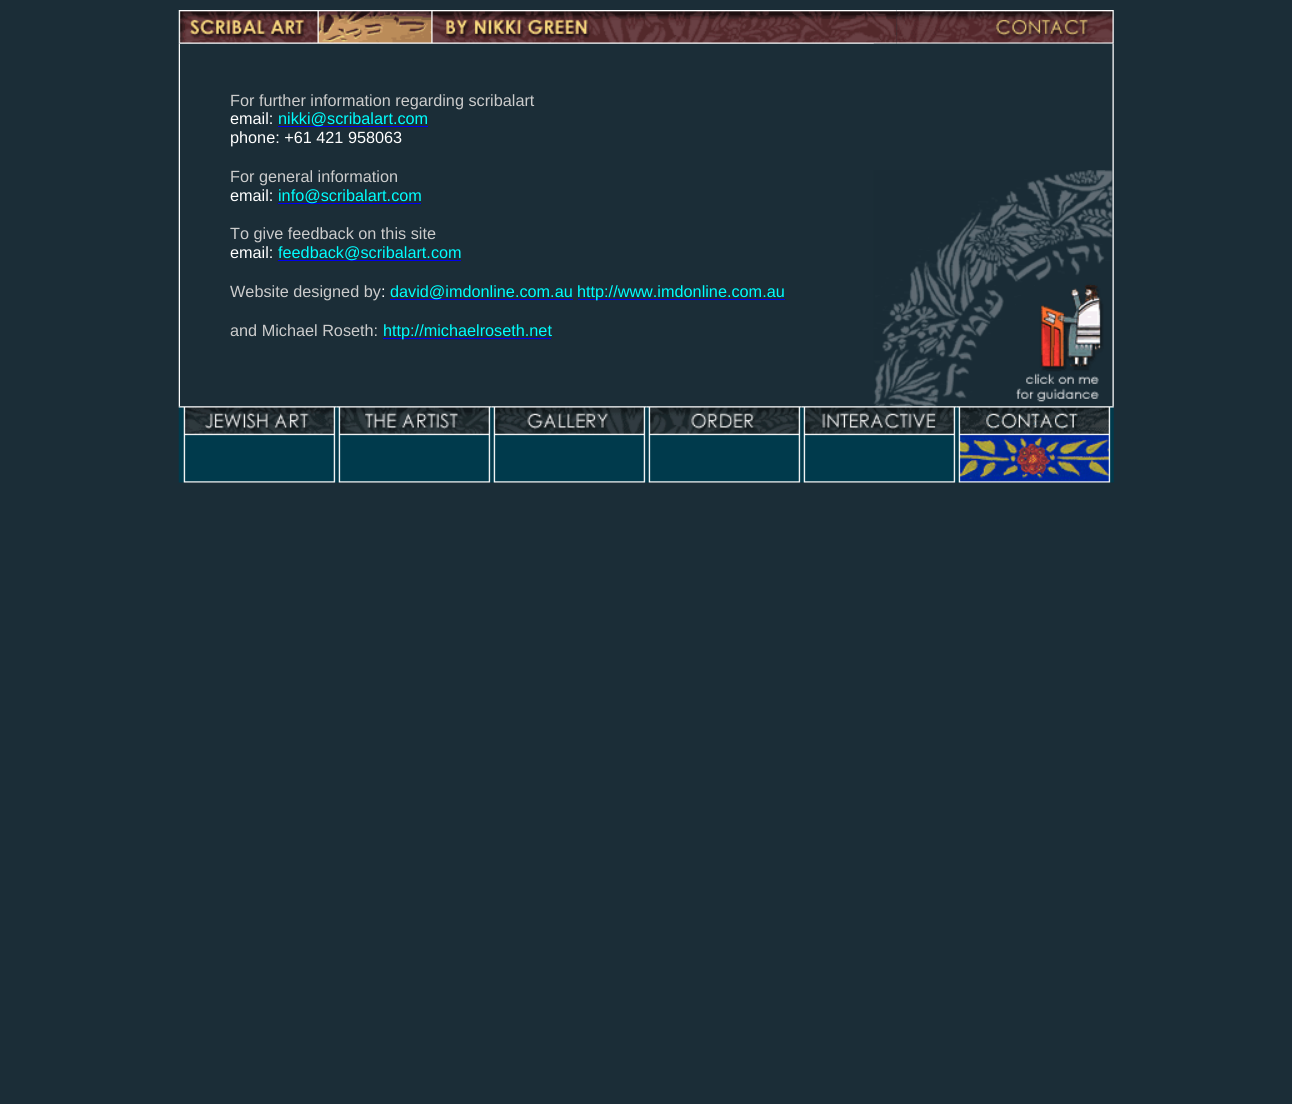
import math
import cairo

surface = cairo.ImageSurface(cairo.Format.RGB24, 1292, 1104)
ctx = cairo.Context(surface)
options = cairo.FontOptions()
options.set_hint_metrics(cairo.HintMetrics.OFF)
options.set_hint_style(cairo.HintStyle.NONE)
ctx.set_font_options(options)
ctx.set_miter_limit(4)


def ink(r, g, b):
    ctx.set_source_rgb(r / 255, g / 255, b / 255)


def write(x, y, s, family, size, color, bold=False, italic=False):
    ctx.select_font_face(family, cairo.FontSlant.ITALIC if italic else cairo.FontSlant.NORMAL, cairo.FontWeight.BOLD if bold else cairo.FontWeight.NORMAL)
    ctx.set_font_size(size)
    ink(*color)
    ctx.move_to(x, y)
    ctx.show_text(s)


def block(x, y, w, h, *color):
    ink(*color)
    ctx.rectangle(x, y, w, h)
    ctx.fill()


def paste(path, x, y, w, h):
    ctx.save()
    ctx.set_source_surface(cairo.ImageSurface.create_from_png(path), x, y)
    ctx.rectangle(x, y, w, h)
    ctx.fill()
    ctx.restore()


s1 = dict(family="Liberation Sans", size=16.25, color=(204, 204, 204))
s2 = dict(family="Liberation Sans", size=16.25, color=(255, 255, 255))
s3 = dict(family="Liberation Sans", size=16.25, color=(0, 255, 255))

ink(27, 45, 55)
ctx.paint()
paste("pic1.png", 178, 10, 719, 34)
paste("pic2.png", 896, 10, 218, 34)
paste("pic3.png", 178, 43, 2, 364)
paste("pic4.png", 873, 43, 240, 1)
paste("pic5.png", 873, 170, 240, 237)
write(230, 106, "For further information regarding scribalart", **s1)
write(230, 124, "email:", **s2)
block(278, 126, 150, 1, 0, 0, 238)
write(278, 124, "nikki@scribalart.com", **s3)
write(230, 143, "phone: +61 421 958063", **s2)
write(230, 182, "For general information", **s1)
write(230, 201, "email:", **s2)
block(278, 203, 143, 1, 0, 0, 238)
write(278, 201, "info@scribalart.com", **s3)
write(230, 239, "To give feedback on this site", **s1)
write(230, 258, "email:", **s2)
block(278, 260, 183, 1, 0, 0, 238)
write(278, 258, "feedback@scribalart.com", **s3)
write(230, 297, "Website designed by", **s1)
write(381, 297, ":", **s2)
block(390, 299, 183, 1, 0, 0, 238)
write(390, 297, "david@imdonline.com.au", **s3)
block(578, 299, 207, 1, 0, 0, 238)
write(577, 297, "http://www.imdonline.com.au", **s3)
write(230, 336, "and Michael Roseth:", **s1)
block(383, 338, 168, 1, 0, 0, 238)
write(383, 336, "http://michaelroseth.net", **s3)
paste("pic6.png", 1112, 43, 2, 364)
paste("pic7.png", 178, 406, 159, 77)
paste("pic8.png", 336, 406, 156, 77)
paste("pic9.png", 491, 406, 156, 77)
paste("pic10.png", 646, 406, 156, 77)
paste("pic11.png", 801, 406, 156, 77)
paste("pic12.png", 956, 406, 158, 77)
surface.write_to_png("screenshot.png")
